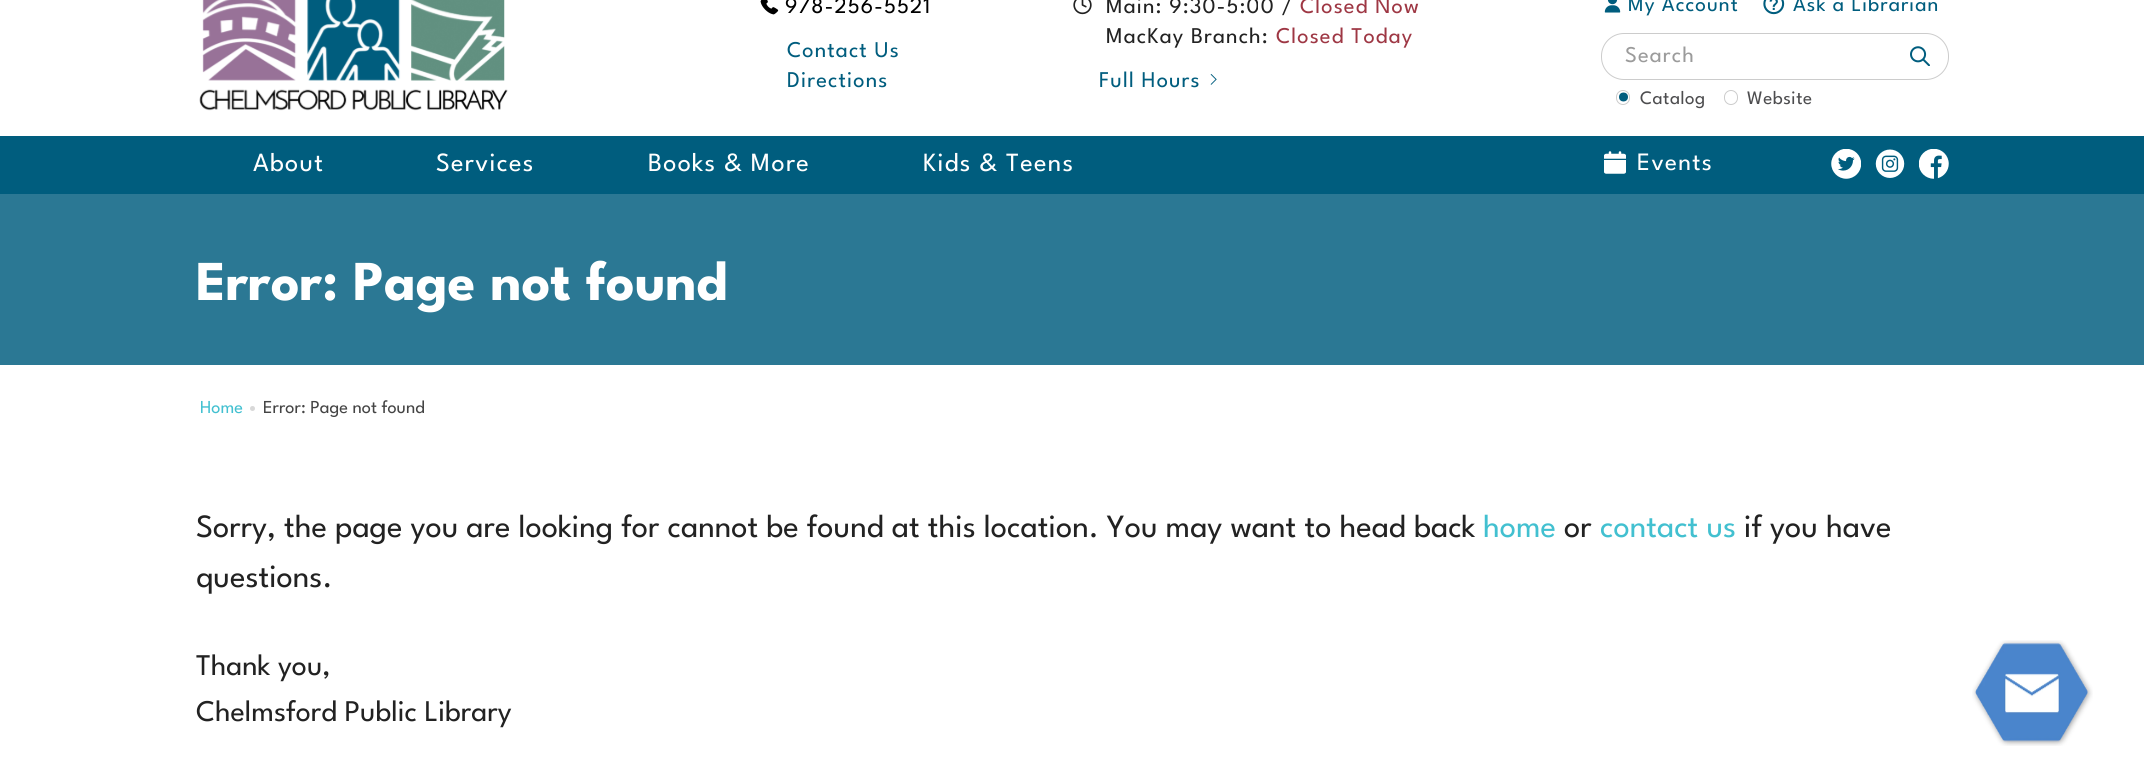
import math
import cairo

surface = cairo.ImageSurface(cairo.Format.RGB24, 2144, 771)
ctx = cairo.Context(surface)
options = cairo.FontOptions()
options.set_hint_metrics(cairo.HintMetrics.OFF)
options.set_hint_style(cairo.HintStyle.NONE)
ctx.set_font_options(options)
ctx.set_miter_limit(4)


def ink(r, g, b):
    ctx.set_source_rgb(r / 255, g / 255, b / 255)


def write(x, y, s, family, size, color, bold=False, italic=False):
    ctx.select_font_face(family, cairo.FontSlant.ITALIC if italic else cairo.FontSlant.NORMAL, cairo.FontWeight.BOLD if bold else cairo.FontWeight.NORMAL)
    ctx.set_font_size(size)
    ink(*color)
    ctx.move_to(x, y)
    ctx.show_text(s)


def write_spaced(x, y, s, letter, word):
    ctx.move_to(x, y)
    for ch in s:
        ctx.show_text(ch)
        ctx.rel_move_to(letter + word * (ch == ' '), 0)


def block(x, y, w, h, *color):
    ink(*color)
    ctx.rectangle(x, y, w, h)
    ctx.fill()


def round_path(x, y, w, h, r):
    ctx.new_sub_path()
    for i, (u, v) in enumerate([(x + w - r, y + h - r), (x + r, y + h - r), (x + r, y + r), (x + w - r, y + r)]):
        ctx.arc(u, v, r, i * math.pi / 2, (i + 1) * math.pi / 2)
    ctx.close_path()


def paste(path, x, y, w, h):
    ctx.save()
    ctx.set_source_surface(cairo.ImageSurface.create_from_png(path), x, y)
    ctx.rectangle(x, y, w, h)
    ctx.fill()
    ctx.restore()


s1 = dict(family="League Spartan", size=56.25, color=(255, 255, 255), bold=True)
s2 = dict(family="League Spartan", size=18.25, color=(66, 192, 208))
s3 = dict(family="League Spartan", size=18.25, color=(68, 68, 68))
s4 = dict(family="League Spartan", size=32.4, color=(34, 34, 34))
s5 = dict(family="League Spartan", size=32.4, color=(66, 192, 208))
s6 = dict(family="League Spartan", size=30, color=(34, 34, 34))

ink(255, 255, 255)
ctx.paint()
paste("pic1.png", 199, 0, 309, 111)
paste("pic2.png", 760, 0, 19, 15)
ctx.select_font_face("League Spartan")
ctx.set_font_size(22.5)
ink(0, 0, 0)
write_spaced(785, 13, "978-256-5521", 1.1, 0)
ink(0, 93, 126)
write_spaced(787, 57, "Contact Us", 1.1, 0)
write_spaced(787, 87, "Directions", 1.1, 0)
paste("pic3.png", 1073, 0, 19, 15)
ink(34, 34, 34)
write_spaced(1106, 13, "Main: 9:30-5:00 /", 1.1, 0)
ink(158, 55, 68)
write_spaced(1300, 13, "Closed Now", 1.1, 0)
ink(34, 34, 34)
write_spaced(1106, 43, "MacKay Branch:", 1.1, 0)
ink(158, 55, 68)
write_spaced(1276, 43, "Closed Today", 1.1, 0)
ink(0, 93, 126)
write_spaced(1099, 87, "Full Hours", 1.1, 0)
paste("pic4.png", 1210, 74, 7, 11)
paste("pic5.png", 1604, 0, 17, 13)
ctx.set_font_size(21.25)
write_spaced(1628, 11, "My Account", 1, 0)
paste("pic6.png", 1763, 0, 22, 15)
write_spaced(1793, 11, "Ask a Librarian", 1, 0)
round_path(1601.5, 33.5, 347, 46, 22.5)
ink(204, 204, 204)
ctx.set_line_width(1)
ctx.stroke()
ctx.set_font_size(22.5)
ink(155, 155, 155)
write_spaced(1625, 62, "Search", 1.1, 0)
paste("pic7.png", 1910, 46, 20, 20)
ink(0, 93, 126)
ctx.arc(1623.5, 97, 4.5, 0, 2 * math.pi)
ctx.fill()
round_path(1616.5, 90.5, 13, 14, 6.5)
ink(204, 204, 204)
ctx.stroke()
ctx.set_font_size(19)
ink(77, 77, 79)
write_spaced(1640, 104, "Catalog", 0.5, 0)
round_path(1724.5, 90.5, 13, 14, 6.5)
ink(204, 204, 204)
ctx.stroke()
ink(77, 77, 79)
write_spaced(1747, 104, "Website", 0.5, 0)
block(0, 136, 2144, 58, 0, 93, 126)
ctx.set_font_size(26.25)
ink(255, 255, 255)
write_spaced(253, 171, "About", 1.25, 0)
write_spaced(436, 171, "Services", 1.25, 0)
write_spaced(648, 171, "Books & More", 1.25, 0)
write_spaced(923, 171, "Kids & Teens", 1.25, 0)
paste("pic8.png", 1604, 151, 22, 23)
ctx.set_font_size(25)
write_spaced(1637, 170, "Events", 1.25, 0)
paste("pic9.png", 1831, 149, 30, 30)
paste("pic10.png", 1875, 149, 30, 29)
paste("pic11.png", 1919, 149, 30, 30)
block(0, 194, 2144, 171, 43, 120, 148)
write(196, 300, "Error: Page not found", **s1)
write(200, 413, "Home", **s2)
ink(216, 216, 216)
ctx.new_path()
ctx.arc(252.5, 408.5, 2.5, 0, 2 * math.pi)
ctx.fill()
write(263, 413, "Error: Page not found", **s3)
write(196, 537, "Sorry, the page you are looking for cannot be found at this location. You may want to head back", **s4)
write(1483, 537, "home", **s5)
write(1564, 537, "or", **s4)
write(1600, 537, "contact us", **s5)
write(1744, 537, "if you have", **s4)
write(196, 587, "questions.", **s4)
write(196, 675, "Thank you,", **s6)
write(196, 721, "Chelmsford Public Library", **s6)
paste("pic12.png", 1972, 640, 121, 106)
surface.write_to_png("screenshot.png")
